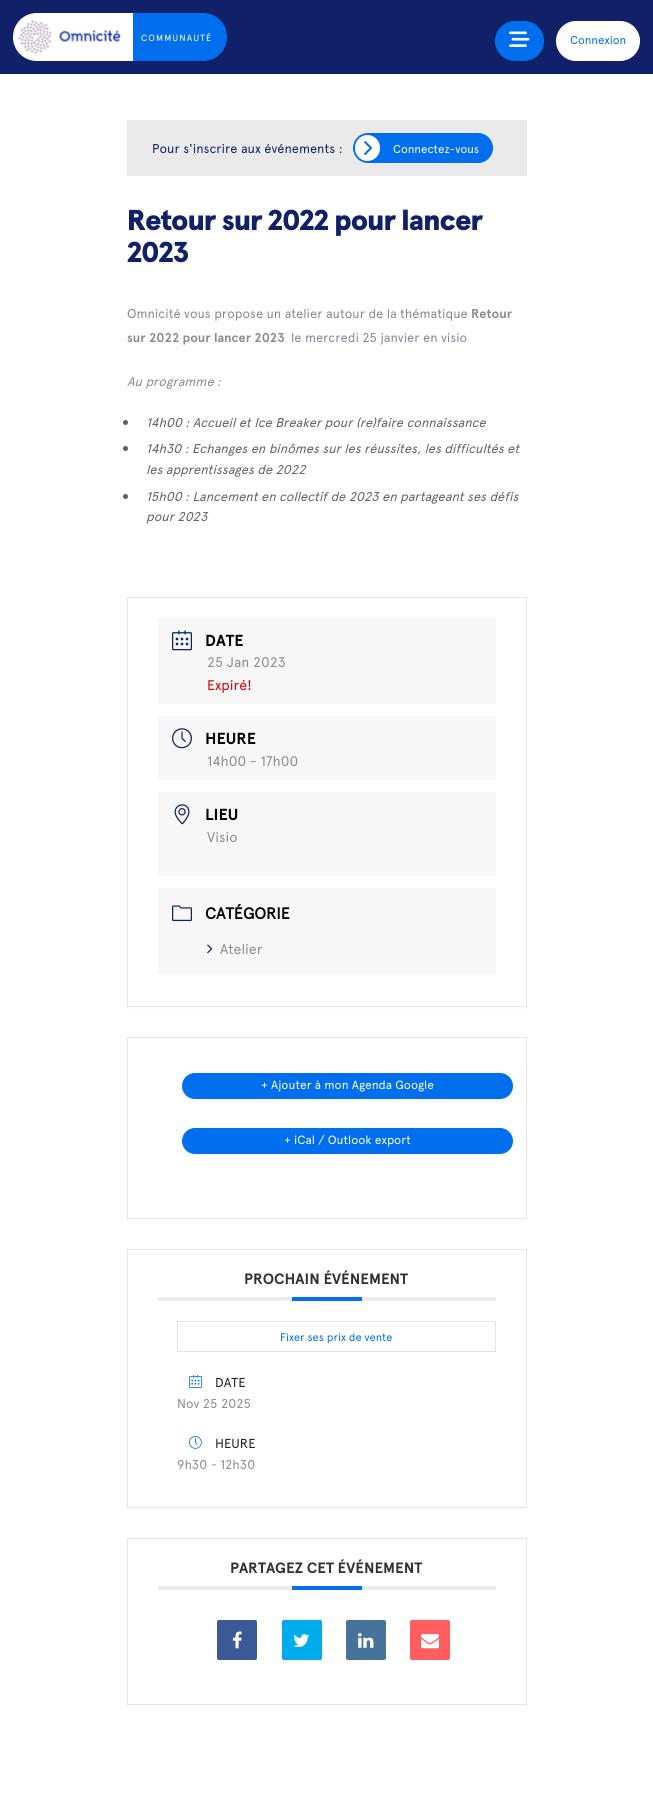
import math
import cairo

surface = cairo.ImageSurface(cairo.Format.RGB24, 653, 1805)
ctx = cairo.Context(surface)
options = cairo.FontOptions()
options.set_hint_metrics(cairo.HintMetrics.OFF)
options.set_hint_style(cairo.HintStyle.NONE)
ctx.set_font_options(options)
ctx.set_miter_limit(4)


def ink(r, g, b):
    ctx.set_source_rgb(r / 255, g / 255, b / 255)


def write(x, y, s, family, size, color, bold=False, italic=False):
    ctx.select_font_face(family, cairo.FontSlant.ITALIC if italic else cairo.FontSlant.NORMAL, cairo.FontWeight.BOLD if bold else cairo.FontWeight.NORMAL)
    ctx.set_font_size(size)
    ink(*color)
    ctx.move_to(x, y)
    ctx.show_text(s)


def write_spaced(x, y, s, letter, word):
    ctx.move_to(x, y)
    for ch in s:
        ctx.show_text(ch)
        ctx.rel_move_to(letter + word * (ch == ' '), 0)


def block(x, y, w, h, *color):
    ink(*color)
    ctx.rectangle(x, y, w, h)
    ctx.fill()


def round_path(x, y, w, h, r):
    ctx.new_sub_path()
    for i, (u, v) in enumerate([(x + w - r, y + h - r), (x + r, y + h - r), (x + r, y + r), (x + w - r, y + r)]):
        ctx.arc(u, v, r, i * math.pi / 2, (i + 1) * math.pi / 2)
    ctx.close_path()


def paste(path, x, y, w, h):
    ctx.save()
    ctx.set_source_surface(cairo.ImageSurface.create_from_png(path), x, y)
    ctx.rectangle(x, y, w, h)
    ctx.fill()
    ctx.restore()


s1 = dict(family="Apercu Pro", size=11.5, color=(1, 111, 238))
s2 = dict(family="Apercu Pro", size=12.8, color=(16, 33, 106))
s3 = dict(family="Apercu Pro", size=11.5, color=(255, 255, 255))
s4 = dict(family="Apercu Pro", size=12.8, color=(140, 135, 145))
s5 = dict(family="Apercu Pro", size=12.8, color=(140, 135, 145), bold=True)
s6 = dict(family="Apercu Pro", size=12.8, color=(140, 135, 145), italic=True)
s7 = dict(family="Apercu Pro", size=12.8, color=(98, 98, 98), italic=True)
s8 = dict(family="Apercu Pro", size=16, color=(0, 0, 0), bold=True)
s9 = dict(family="Apercu Pro", size=14, color=(141, 141, 141))
s10 = dict(family="Apercu Pro", size=14, color=(216, 0, 12))
s11 = dict(family="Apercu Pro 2", size=16, color=(0, 0, 0), bold=True)
s12 = dict(family="Apercu Pro", size=12, color=(255, 255, 255))
s13 = dict(family="Apercu Pro", size=15, color=(49, 49, 49), bold=True)
s14 = dict(family="Apercu Pro", size=11, color=(1, 111, 238))
s15 = dict(family="Apercu Pro", size=13, color=(34, 34, 34))
s16 = dict(family="Apercu Pro", size=12.8, color=(141, 141, 141))

ink(255, 255, 255)
ctx.paint()
block(0, 0, 653, 74, 16, 33, 106)
ink(255, 255, 255)
ctx.new_path()
ctx.move_to(37, 13)
ctx.line_to(133, 13)
ctx.line_to(133, 61)
ctx.line_to(37, 61)
ctx.curve_to(23.5, 61, 13, 50.5, 13, 37)
ctx.curve_to(13, 23.5, 23.5, 13, 37, 13)
ctx.close_path()
ctx.fill()
paste("pic1.png", 18, 20, 103, 35)
ink(0, 111, 238)
ctx.new_path()
ctx.move_to(133, 13)
ctx.line_to(203, 13)
ctx.curve_to(216.5, 13, 227, 23.5, 227, 37)
ctx.curve_to(227, 50.5, 216.5, 61, 203, 61)
ctx.line_to(133, 61)
ctx.close_path()
ctx.fill()
ctx.select_font_face("Apercu Pro")
ctx.set_font_size(9)
ink(255, 255, 255)
write_spaced(141, 41, "COMMUNAUTÉ", 1.1, 0)
ink(0, 111, 238)
round_path(495.5, 21.5, 48, 39, 19.5)
ctx.fill_preserve()
ctx.set_line_width(1)
ctx.stroke()
paste("pic2.png", 509, 31, 21, 16)
ink(255, 255, 255)
round_path(556.5, 21.5, 83, 39, 19.5)
ctx.fill_preserve()
ctx.stroke()
write(570, 44, "Connexion", **s1)
block(127, 120, 400, 56, 234, 234, 234)
write(152, 153, "Pour s'inscrire aux événements :", **s2)
ink(0, 111, 238)
round_path(353.5, 133.5, 139, 29, 14.5)
ctx.fill_preserve()
ctx.stroke()
ink(255, 255, 255)
round_path(355, 135, 25, 26, 12.5)
ctx.fill()
ctx.new_path()
ctx.move_to(365, 154)
ctx.line_to(371, 148)
ctx.line_to(365, 142)
ink(0, 111, 238)
ctx.set_line_width(2)
ctx.set_line_cap(cairo.LineCap.ROUND)
ctx.set_line_join(cairo.LineJoin.ROUND)
ctx.stroke()
write(393, 153, "Connectez-vous", **s3)
ctx.select_font_face("Apercu Pro Black")
ctx.set_font_size(28.75)
ink(16, 33, 106)
write_spaced(127, 230, "Retour sur 2022 pour lancer", -1, 0)
write_spaced(127, 262, "2023", -1, 0)
write(127, 318, "Omnicité vous propose un atelier autour de la thématique", **s4)
write(471, 318, "Retour", **s5)
write(127, 342, "sur 2022 pour lancer 2023", **s5)
write(291, 342, "le mercredi 25 janvier en visio", **s4)
write(127, 386, "Au programme :", **s6)
ink(98, 98, 98)
ctx.new_path()
ctx.arc(125.5, 422.5, 2.5, 0, 2 * math.pi)
ctx.fill()
write(146, 427, "14h00 : Accueil et Ice Breaker pour (re)faire connaissance", **s7)
ctx.new_path()
ctx.arc(125.5, 448.5, 2.5, 0, 2 * math.pi)
ctx.fill()
write(146, 453, "14h30 : Echanges en binômes sur les réussites, les difficultés et", **s7)
write(146, 474, "les apprentissages de 2022", **s7)
ctx.new_path()
ctx.arc(125.5, 496.5, 2.5, 0, 2 * math.pi)
ctx.fill()
write(146, 501, "15h00 : Lancement en collectif de 2023 en partageant ses défis", **s7)
write(146, 521, "pour 2023", **s7)
block(127, 1007, 400, 2, 251, 251, 251)
ctx.rectangle(127.5, 597.5, 399, 409)
ink(230, 230, 230)
ctx.set_line_width(1)
ctx.set_line_cap(cairo.LineCap.BUTT)
ctx.set_line_join(cairo.LineJoin.MITER)
ctx.stroke()
block(158, 618, 338, 86, 247, 247, 247)
paste("pic3.png", 172, 630, 20, 21)
write(205, 646, "DATE", **s8)
write(207, 667, "25 Jan 2023", **s9)
write(207, 690, "Expiré!", **s10)
block(158, 716, 338, 64, 247, 247, 247)
paste("pic4.png", 172, 728, 20, 21)
write(205, 744, "HEURE", **s8)
write(207, 766, "14h00 - 17h00", **s9)
block(158, 792, 338, 84, 247, 247, 247)
paste("pic5.png", 174, 804, 16, 21)
write(205, 820, "LIEU", **s8)
write(207, 842, "Visio", **s9)
block(158, 888, 338, 86, 247, 247, 247)
paste("pic6.png", 172, 905, 20, 17)
write(205, 919, "CATÉGORIE", **s11)
paste("pic7.png", 207, 944, 6, 10)
write(220, 954, "Atelier", **s9)
block(127, 1219, 400, 2, 251, 251, 251)
ctx.rectangle(127.5, 1037.5, 399, 181)
ink(230, 230, 230)
ctx.stroke()
ink(247, 247, 247)
ctx.new_path()
ctx.move_to(182, 1087)
ctx.line_to(182, 1091)
ctx.curve_to(183, 1094, 185, 1097, 188, 1099)
ctx.curve_to(190, 1100, 192, 1101, 195, 1101)
ctx.line_to(503, 1101)
ctx.curve_to(509, 1099, 513, 1093, 513, 1087)
ctx.curve_to(512, 1094, 507, 1099, 500, 1099)
ctx.line_to(195, 1099)
ctx.curve_to(188, 1099, 183, 1094, 182, 1087)
ctx.close_path()
ctx.fill()
ink(0, 111, 238)
round_path(182.5, 1073.5, 330, 25, 12.5)
ctx.fill_preserve()
ink(1, 111, 238)
ctx.stroke()
write(261, 1089, "+ Ajouter à mon Agenda Google", **s12)
ink(247, 247, 247)
ctx.new_path()
ctx.move_to(182, 1142)
ctx.line_to(182, 1146)
ctx.curve_to(183, 1149, 185, 1152, 188, 1154)
ctx.curve_to(190, 1155, 192, 1156, 195, 1156)
ctx.line_to(503, 1156)
ctx.curve_to(509, 1154, 513, 1148, 513, 1142)
ctx.curve_to(512, 1149, 507, 1154, 500, 1154)
ctx.line_to(195, 1154)
ctx.curve_to(188, 1154, 183, 1149, 182, 1142)
ctx.close_path()
ctx.fill()
ink(0, 111, 238)
round_path(182.5, 1128.5, 330, 25, 12.5)
ctx.fill_preserve()
ink(1, 111, 238)
ctx.stroke()
write(284, 1144, "+ iCal / Outlook export", **s12)
block(127, 1508, 400, 2, 251, 251, 251)
ctx.rectangle(127.5, 1249.5, 399, 258)
ink(230, 230, 230)
ctx.stroke()
block(158, 1297, 338, 4, 235, 235, 235)
write(244, 1284, "PROCHAIN ÉVÉNEMENT", **s13)
block(292, 1297, 70, 4, 1, 111, 238)
ctx.rectangle(177.5, 1321.5, 318, 30)
ink(227, 227, 227)
ctx.stroke()
write(280, 1341, "Fixer ses prix de vente", **s14)
paste("pic8.png", 189, 1375, 13, 13)
write(215, 1387, "DATE", **s15)
write(177, 1408, "Nov 25 2025", **s16)
paste("pic9.png", 189, 1436, 13, 13)
write(215, 1448, "HEURE", **s15)
write(177, 1469, "9h30 - 12h30", **s16)
block(127, 1705, 400, 2, 251, 251, 251)
ctx.rectangle(127.5, 1538.5, 399, 166)
ink(230, 230, 230)
ctx.stroke()
block(158, 1586, 338, 4, 235, 235, 235)
write(230, 1573, "PARTAGEZ CET ÉVÉNEMENT", **s13)
block(292, 1586, 70, 4, 1, 111, 238)
ink(59, 89, 150)
round_path(217, 1620, 40, 40, 2)
ctx.fill()
paste("pic10.png", 232, 1631, 10, 18)
ink(0, 172, 238)
round_path(282, 1620, 40, 40, 2)
ctx.fill()
paste("pic11.png", 293, 1634, 17, 13)
ink(69, 115, 153)
round_path(346, 1620, 40, 40, 2)
ctx.fill()
paste("pic12.png", 358, 1633, 16, 15)
ink(255, 93, 94)
round_path(410, 1620, 40, 40, 2)
ctx.fill()
paste("pic13.png", 421, 1634, 18, 15)
surface.write_to_png("screenshot.png")
